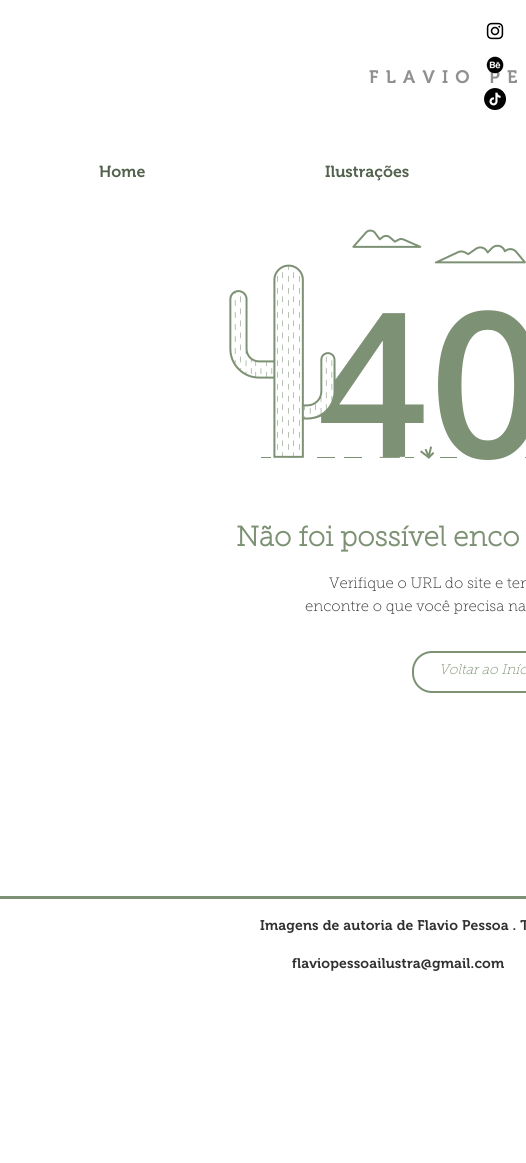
import math
import cairo

surface = cairo.ImageSurface(cairo.Format.RGB24, 526, 1163)
ctx = cairo.Context(surface)
options = cairo.FontOptions()
options.set_hint_metrics(cairo.HintMetrics.OFF)
options.set_hint_style(cairo.HintStyle.NONE)
ctx.set_font_options(options)
ctx.set_miter_limit(4)


def ink(r, g, b):
    ctx.set_source_rgb(r / 255, g / 255, b / 255)


def write(x, y, s, family, size, color, bold=False, italic=False):
    ctx.select_font_face(family, cairo.FontSlant.ITALIC if italic else cairo.FontSlant.NORMAL, cairo.FontWeight.BOLD if bold else cairo.FontWeight.NORMAL)
    ctx.set_font_size(size)
    ink(*color)
    ctx.move_to(x, y)
    ctx.show_text(s)


def write_spaced(x, y, s, letter, word):
    ctx.move_to(x, y)
    for ch in s:
        ctx.show_text(ch)
        ctx.rel_move_to(letter + word * (ch == ' '), 0)


def block(x, y, w, h, *color):
    ink(*color)
    ctx.rectangle(x, y, w, h)
    ctx.fill()


def round_path(x, y, w, h, r):
    ctx.new_sub_path()
    for i, (u, v) in enumerate([(x + w - r, y + h - r), (x + r, y + h - r), (x + r, y + r), (x + w - r, y + r)]):
        ctx.arc(u, v, r, i * math.pi / 2, (i + 1) * math.pi / 2)
    ctx.close_path()


def paste(path, x, y, w, h):
    ctx.save()
    ctx.set_source_surface(cairo.ImageSurface.create_from_png(path), x, y)
    ctx.rectangle(x, y, w, h)
    ctx.fill()
    ctx.restore()


s1 = dict(family="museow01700 SemiBold", size=16, color=(83, 97, 77))
s2 = dict(family="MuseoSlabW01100", size=28, color=(125, 145, 116), bold=True)
s3 = dict(family="MuseoSlabW01100 Thin", size=15, color=(48, 48, 48))
s4 = dict(family="MuseoSlabW01100 Thin", size=14, color=(125, 145, 116), italic=True)

ink(255, 255, 255)
ctx.paint()
paste("pic1.png", 486, 22, 18, 18)
ctx.select_font_face("museow01700 SemiBold")
ctx.set_font_size(18)
ink(144, 144, 144)
write_spaced(369, 83, "FLAVIO PE", 7.25, 0)
paste("pic2.png", 486, 56, 18, 18)
paste("pic3.png", 484, 88, 22, 22)
write(99, 177, "Home", **s1)
write(325, 177, "Ilustrações", **s1)
paste("pic4.png", 229, 229, 297, 231)
write(236, 546, "Não foi possível enco", **s2)
write(329, 588, "Verifique o URL do site e ten", **s3)
write(305, 611, "encontre o que você precisa na", **s3)
round_path(413, 652, 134, 40, 19)
ink(125, 145, 116)
ctx.stroke()
write(439, 674, "Voltar ao Iníc", **s4)
block(0, 896, 526, 3, 125, 145, 116)
ctx.select_font_face("museow01700 SemiBold")
ink(48, 48, 48)
write_spaced(260, 930, "Imagens de autoria de Flavio Pessoa . T", 0.15, 0)
write_spaced(292, 968, "flaviopessoailustra@gmail.com", 0.15, 0)
surface.write_to_png("screenshot.png")
